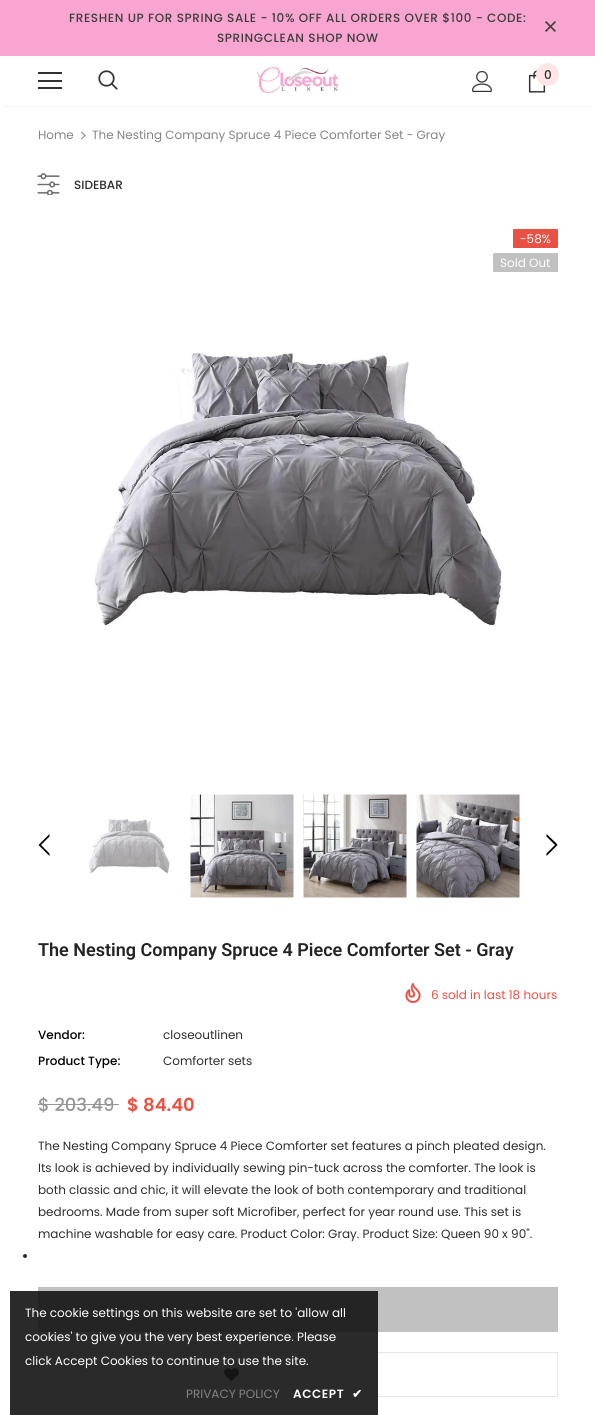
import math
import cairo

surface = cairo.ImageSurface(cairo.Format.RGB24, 595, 1415)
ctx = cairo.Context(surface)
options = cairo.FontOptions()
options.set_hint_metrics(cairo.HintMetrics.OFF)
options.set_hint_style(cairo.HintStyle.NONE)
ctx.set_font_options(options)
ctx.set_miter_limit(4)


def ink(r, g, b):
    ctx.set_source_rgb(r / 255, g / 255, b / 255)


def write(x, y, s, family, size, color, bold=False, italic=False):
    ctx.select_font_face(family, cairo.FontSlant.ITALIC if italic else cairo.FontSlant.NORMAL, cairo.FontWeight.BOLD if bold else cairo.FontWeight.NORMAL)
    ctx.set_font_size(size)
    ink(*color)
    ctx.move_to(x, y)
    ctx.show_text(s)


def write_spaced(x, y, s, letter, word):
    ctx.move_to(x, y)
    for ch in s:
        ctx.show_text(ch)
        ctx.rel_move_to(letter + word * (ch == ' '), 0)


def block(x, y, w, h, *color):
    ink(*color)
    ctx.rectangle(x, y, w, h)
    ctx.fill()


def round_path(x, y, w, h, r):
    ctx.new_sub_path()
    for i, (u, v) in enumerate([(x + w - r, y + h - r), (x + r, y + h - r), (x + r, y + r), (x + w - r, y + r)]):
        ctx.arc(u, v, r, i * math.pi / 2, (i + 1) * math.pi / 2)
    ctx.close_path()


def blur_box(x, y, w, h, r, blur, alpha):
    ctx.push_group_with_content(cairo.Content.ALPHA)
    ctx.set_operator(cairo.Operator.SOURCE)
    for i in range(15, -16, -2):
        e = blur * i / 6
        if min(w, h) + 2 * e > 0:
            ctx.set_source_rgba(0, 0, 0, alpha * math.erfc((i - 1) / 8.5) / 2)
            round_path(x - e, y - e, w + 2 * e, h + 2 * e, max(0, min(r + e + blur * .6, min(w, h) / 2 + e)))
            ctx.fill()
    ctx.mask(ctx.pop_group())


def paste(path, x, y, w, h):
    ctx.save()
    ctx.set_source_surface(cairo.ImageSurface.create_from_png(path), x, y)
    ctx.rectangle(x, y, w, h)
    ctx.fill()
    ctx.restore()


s1 = dict(family="Poppins Medium", size=12, color=(45, 45, 45))
s2 = dict(family="Poppins", size=12, color=(132, 132, 132))
s3 = dict(family="Poppins", size=12, color=(255, 255, 255))
s4 = dict(family="Roboto SemiBold", size=18, color=(35, 35, 35))
s5 = dict(family="Poppins", size=12, color=(233, 81, 68))
s6 = dict(family="Poppins Medium", size=12, color=(0, 0, 0))
s7 = dict(family="Poppins", size=12, color=(45, 45, 45))
s8 = dict(family="Poppins Medium", size=18, color=(150, 150, 150))
s9 = dict(family="Poppins SemiBold", size=18, color=(233, 81, 68))

ink(255, 255, 255)
ctx.paint()
block(0, 0, 595, 56, 248, 166, 209)
ctx.select_font_face("Poppins Medium")
ctx.set_font_size(12)
ink(60, 60, 60)
write_spaced(69, 22, "FRESHEN UP FOR SPRING SALE - 10% OFF ALL ORDERS OVER $100 - CODE:", 0.6, 0)
write_spaced(217, 42, "SPRINGCLEAN SHOP NOW", 0.6, 0)
paste("pic1.png", 545, 21, 11, 11)
ctx.save()
ctx.rectangle(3, 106, 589, 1)
ctx.clip()
ink(0, 0, 0)
blur_box(3, 62, 589, 44, 0, 1.5, 0.12)
ctx.restore()
block(38, 72, 24, 2, 50, 50, 50)
block(38, 80, 24, 2, 50, 50, 50)
block(38, 87, 24, 2, 50, 50, 50)
paste("pic2.png", 98, 70, 20, 20)
paste("pic3.png", 257, 67, 81, 26)
paste("pic4.png", 472, 71, 20, 21)
paste("pic5.png", 528, 70, 18, 23)
ink(255, 229, 229)
ctx.arc(547.5, 74.5, 11.5, 0, 2 * math.pi)
ctx.fill()
write(544, 79, "0", **s1)
write(38, 139, "Home", **s2)
paste("pic6.png", 81, 131, 5, 9)
write(92, 139, "The Nesting Company Spruce 4 Piece Comforter Set - Gray", **s2)
paste("pic7.png", 37, 173, 23, 22)
write(74, 189, "SIDEBAR", **s1)
ink(233, 81, 68)
round_path(513, 229, 45, 19, 1)
ctx.fill()
write(520, 243, "-58%", **s3)
ink(193, 193, 193)
round_path(493, 253, 65, 19, 1)
ctx.fill()
write(500, 267, "Sold Out", **s3)
paste("pic8.png", 94, 352, 408, 275)
ink(0, 0, 0)
ctx.new_path()
ctx.move_to(38.5, 845)
ctx.line_to(49.5, 856)
ctx.line_to(49.5, 853.5)
ctx.line_to(41, 845)
ctx.line_to(49.5, 836.5)
ctx.line_to(49.5, 834)
ctx.close_path()
ctx.fill()
paste("pic9.png", 88, 819, 82, 54)
paste("pic10.png", 190, 794, 104, 104)
paste("pic11.png", 303, 794, 104, 104)
paste("pic12.png", 416, 794, 104, 104)
ctx.new_path()
ctx.move_to(556.5, 843.5)
ctx.line_to(546.5, 834)
ctx.line_to(546.5, 836.5)
ctx.line_to(555, 845)
ctx.line_to(546.5, 853.5)
ctx.line_to(546.5, 856)
ctx.line_to(557.5, 845)
ctx.close_path()
ctx.fill()
write(38, 956, "The Nesting Company Spruce 4 Piece Comforter Set - Gray", **s4)
paste("pic13.png", 405, 983, 16, 20)
write(431, 999, "6 sold in last 18 hours", **s5)
write(38, 1039, "Vendor:", **s6)
write(163, 1039, "closeoutlinen", **s7)
write(38, 1065, "Product Type:", **s6)
write(163, 1065, "Comforter sets", **s7)
write(38, 1111, "$ 203.49", **s8)
block(38, 1104, 81, 1, 150, 150, 150)
write(127, 1111, "$ 84.40", **s9)
write(38, 1150, "The Nesting Company Spruce 4 Piece Comforter set features a pinch pleated design.", **s7)
write(38, 1172, "Its look is achieved by individually sewing pin-tuck across the comforter. The look is", **s7)
write(38, 1194, "both classic and chic, it will elevate the look of both contemporary and traditional", **s7)
write(38, 1216, "bedrooms. Made from super soft Microfiber, perfect for year round use. This set is", **s7)
write(38, 1238, "machine washable for easy care. Product Color: Gray. Product Size: Queen 90 x 90\".", **s7)
ctx.new_path()
ctx.arc(25, 1256, 2, 0, 2 * math.pi)
ctx.fill()
block(38, 1287, 520, 45, 193, 193, 193)
ctx.rectangle(38.5, 1352.5, 519, 44)
ink(230, 230, 230)
ctx.set_line_width(1)
ctx.stroke()
paste("pic14.png", 224, 1368, 15, 13)
ctx.set_source_rgba(0.078, 0.078, 0.078, 0.9)
ctx.rectangle(10, 1291, 368, 124)
ctx.fill()
write(25, 1317, "The cookie settings on this website are set to 'allow all", **s3)
write(25, 1341, "cookies' to give you the very best experience. Please", **s3)
write(25, 1365, "click Accept Cookies to continue to use the site.", **s3)
write(186, 1398, "PRIVACY POLICY", **s2)
ctx.select_font_face("Poppins SemiBold")
ink(255, 255, 255)
write_spaced(293, 1398, "ACCEPT", 0.6, 0)
ctx.select_font_face("DejaVu Sans", cairo.FontSlant.NORMAL, cairo.FontWeight.BOLD)
write_spaced(352, 1398, "✔", 0.6, 0)
surface.write_to_png("screenshot.png")
